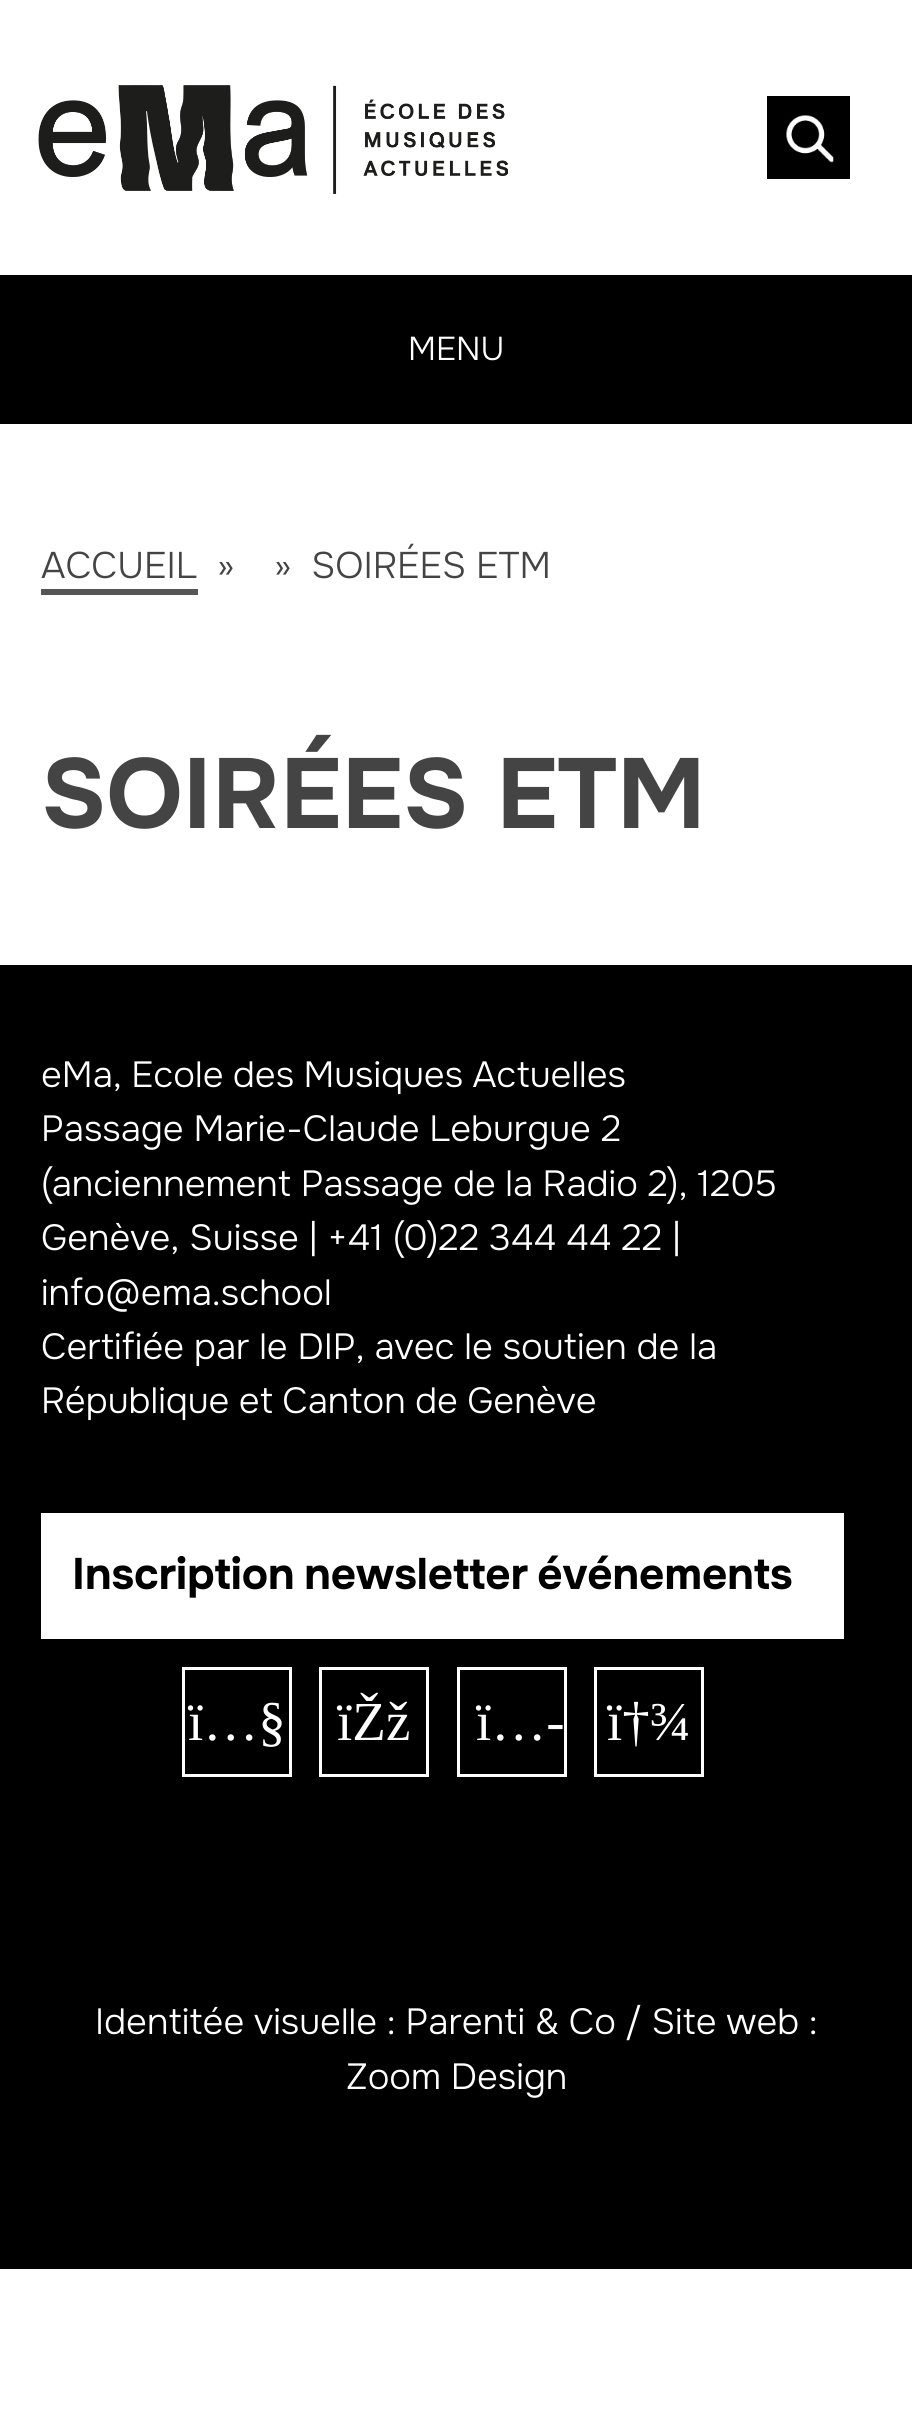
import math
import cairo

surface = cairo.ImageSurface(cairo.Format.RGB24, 912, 2420)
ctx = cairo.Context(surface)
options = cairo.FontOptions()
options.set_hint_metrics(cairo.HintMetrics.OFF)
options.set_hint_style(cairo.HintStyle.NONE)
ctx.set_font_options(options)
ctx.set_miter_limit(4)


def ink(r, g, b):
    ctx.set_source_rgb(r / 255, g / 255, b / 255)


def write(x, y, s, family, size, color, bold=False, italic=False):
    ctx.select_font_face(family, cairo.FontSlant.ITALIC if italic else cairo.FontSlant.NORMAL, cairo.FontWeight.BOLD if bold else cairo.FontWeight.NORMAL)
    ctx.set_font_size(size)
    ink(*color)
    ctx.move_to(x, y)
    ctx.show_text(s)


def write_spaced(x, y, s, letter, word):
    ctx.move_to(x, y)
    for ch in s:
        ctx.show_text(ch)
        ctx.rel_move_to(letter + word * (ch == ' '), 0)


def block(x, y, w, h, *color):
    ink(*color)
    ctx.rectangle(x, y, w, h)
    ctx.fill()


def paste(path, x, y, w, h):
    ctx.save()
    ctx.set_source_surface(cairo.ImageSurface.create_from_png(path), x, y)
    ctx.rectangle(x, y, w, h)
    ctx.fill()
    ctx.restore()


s1 = dict(family="Onest Light", size=33, color=(255, 255, 255))
s2 = dict(family="Onest Light", size=37, color=(68, 68, 68))
s3 = dict(family="Onest", size=99, color=(68, 68, 68), bold=True)
s4 = dict(family="Onest Light", size=36.3, color=(255, 255, 255))
s5 = dict(family="Liberation Serif", size=55, color=(255, 255, 255))

ink(255, 255, 255)
ctx.paint()
paste("pic1.png", 38, 85, 470, 109)
block(767, 96, 83, 83, 0, 0, 0)
paste("pic2.png", 786, 115, 48, 48)
block(0, 275, 912, 149, 0, 0, 0)
write(408, 360, "MENU", **s1)
write(41, 578, "ACCUEIL", **s2)
block(41, 589, 157, 6, 86, 86, 86)
write(217, 578, "»", **s2)
write(274, 578, "»  SOIRÉES ETM", **s2)
write(41, 828, "SOIRÉES ETM", **s3)
block(0, 965, 912, 1304, 0, 0, 0)
ctx.select_font_face("Onest Light")
ctx.set_font_size(36.3)
ink(255, 255, 255)
write_spaced(41, 1087, "eMa, Ecole des Musiques Actuelles", 0, -0.5)
write(41, 1141, "Passage Marie-Claude Leburgue 2", **s4)
write_spaced(41, 1196, "(anciennement Passage de la Radio 2), 1205", 0, -0.25)
write(41, 1250, "Genève, Suisse | +41 (0)22 344 44 22 |", **s4)
write(41, 1305, "info@ema.school", **s4)
write(41, 1359, "Certifiée par le DIP, avec le soutien de la", **s4)
write_spaced(41, 1413, "République et Canton de Genève", 0, -0.5)
block(41, 1513, 803, 126, 255, 255, 255)
ctx.select_font_face("Onest", cairo.FontSlant.NORMAL, cairo.FontWeight.BOLD)
ctx.set_font_size(44)
ink(0, 0, 0)
write_spaced(72, 1589, "Inscription newsletter événements", 0, -3)
ctx.rectangle(183.5, 1668.5, 107, 107)
ink(255, 255, 255)
ctx.set_line_width(3)
ctx.stroke()
write(188, 1740, "ï…§", **s5)
ctx.rectangle(320.5, 1668.5, 107, 107)
ctx.stroke()
write(337, 1740, "ïŽž", **s5)
ctx.rectangle(458.5, 1668.5, 107, 107)
ctx.stroke()
write(476, 1740, "ï…-", **s5)
ctx.rectangle(595.5, 1668.5, 107, 107)
ctx.stroke()
write(607, 1740, "ï†¾", **s5)
write(95, 2034, "Identitée visuelle : Parenti & Co", **s4)
write_spaced(625, 2034, "/ Site web :", 0, -0.25)
write(346, 2089, "Zoom Design", **s4)
surface.write_to_png("screenshot.png")
